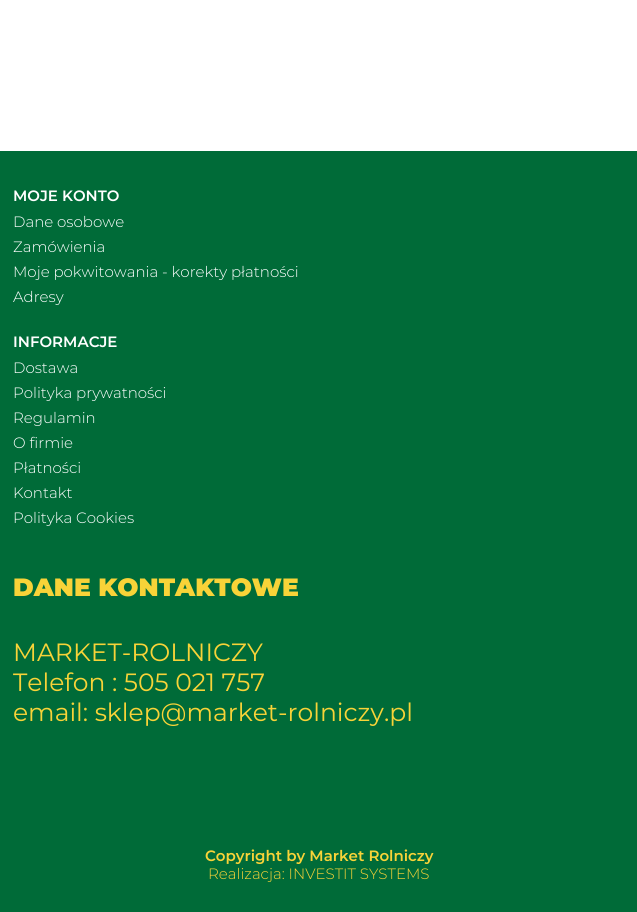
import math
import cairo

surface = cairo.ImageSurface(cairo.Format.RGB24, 637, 912)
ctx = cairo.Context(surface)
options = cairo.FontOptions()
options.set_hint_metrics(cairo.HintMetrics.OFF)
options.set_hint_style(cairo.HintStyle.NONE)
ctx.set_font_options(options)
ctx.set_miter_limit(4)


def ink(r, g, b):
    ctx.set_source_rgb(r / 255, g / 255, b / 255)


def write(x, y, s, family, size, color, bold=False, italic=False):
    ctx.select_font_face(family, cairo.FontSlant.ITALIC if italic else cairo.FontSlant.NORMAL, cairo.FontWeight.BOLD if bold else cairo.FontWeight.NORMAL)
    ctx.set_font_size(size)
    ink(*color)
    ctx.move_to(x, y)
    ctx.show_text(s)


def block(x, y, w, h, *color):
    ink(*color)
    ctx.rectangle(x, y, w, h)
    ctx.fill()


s1 = dict(family="Montserrat SemiBold", size=15, color=(255, 255, 255))
s2 = dict(family="Montserrat Light", size=15, color=(255, 255, 255))
s3 = dict(family="Montserrat Black", size=25, color=(248, 211, 56))
s4 = dict(family="Montserrat", size=25, color=(248, 211, 56))
s5 = dict(family="Montserrat SemiBold", size=15, color=(248, 211, 56))
s6 = dict(family="Montserrat Light", size=15, color=(248, 211, 56))

ink(255, 255, 255)
ctx.paint()
block(0, 151, 637, 761, 0, 107, 56)
write(13, 201, "MOJE KONTO", **s1)
write(13, 227, "Dane osobowe", **s2)
write(13, 252, "Zamówienia", **s2)
write(13, 277, "Moje pokwitowania - korekty płatności", **s2)
write(13, 302, "Adresy", **s2)
write(13, 347, "INFORMACJE", **s1)
write(13, 373, "Dostawa", **s2)
write(13, 398, "Polityka prywatności", **s2)
write(13, 423, "Regulamin", **s2)
write(13, 448, "O firmie", **s2)
write(13, 473, "Płatności", **s2)
write(13, 498, "Kontakt", **s2)
write(13, 523, "Polityka Cookies", **s2)
write(13, 596, "DANE KONTAKTOWE", **s3)
write(13, 661, "MARKET-ROLNICZY", **s4)
write(13, 691, "Telefon : 505 021 757", **s4)
write(13, 721, "email: sklep@market-rolniczy.pl", **s4)
write(205, 861, "Copyright by Market Rolniczy", **s5)
write(208, 879, "Realizacja: INVESTIT SYSTEMS", **s6)
surface.write_to_png("screenshot.png")
